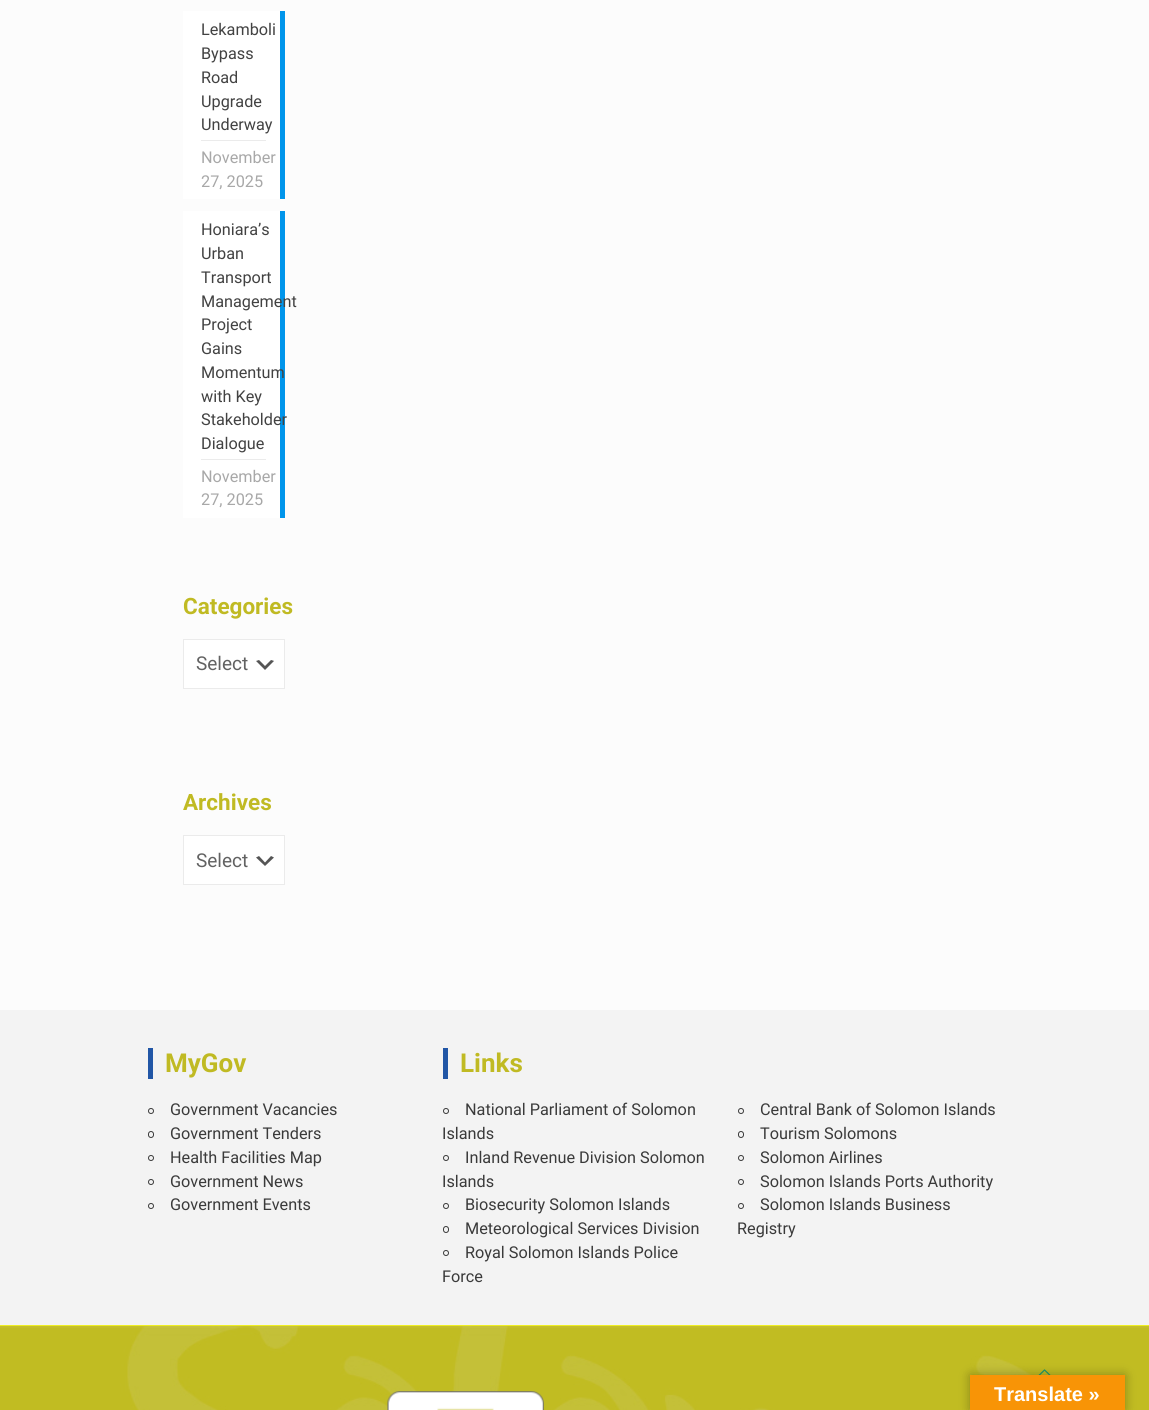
import math
import cairo

surface = cairo.ImageSurface(cairo.Format.RGB24, 1149, 1410)
ctx = cairo.Context(surface)
options = cairo.FontOptions()
options.set_hint_metrics(cairo.HintMetrics.OFF)
options.set_hint_style(cairo.HintStyle.NONE)
ctx.set_font_options(options)
ctx.set_miter_limit(4)


def ink(r, g, b):
    ctx.set_source_rgb(r / 255, g / 255, b / 255)


def write(x, y, s, family, size, color, bold=False, italic=False):
    ctx.select_font_face(family, cairo.FontSlant.ITALIC if italic else cairo.FontSlant.NORMAL, cairo.FontWeight.BOLD if bold else cairo.FontWeight.NORMAL)
    ctx.set_font_size(size)
    ink(*color)
    ctx.move_to(x, y)
    ctx.show_text(s)


def block(x, y, w, h, *color):
    ink(*color)
    ctx.rectangle(x, y, w, h)
    ctx.fill()


def round_path(x, y, w, h, r):
    ctx.new_sub_path()
    for i, (u, v) in enumerate([(x + w - r, y + h - r), (x + r, y + h - r), (x + r, y + r), (x + w - r, y + r)]):
        ctx.arc(u, v, r, i * math.pi / 2, (i + 1) * math.pi / 2)
    ctx.close_path()


def blur_box(x, y, w, h, r, blur, alpha):
    ctx.push_group_with_content(cairo.Content.ALPHA)
    ctx.set_operator(cairo.Operator.SOURCE)
    for i in range(15, -16, -2):
        e = blur * i / 6
        if min(w, h) + 2 * e > 0:
            ctx.set_source_rgba(0, 0, 0, alpha * math.erfc((i - 1) / 8.5) / 2)
            round_path(x - e, y - e, w + 2 * e, h + 2 * e, max(0, min(r + e + blur * .6, min(w, h) / 2 + e)))
            ctx.fill()
    ctx.mask(ctx.pop_group())


def paste(path, x, y, w, h):
    ctx.save()
    ctx.set_source_surface(cairo.ImageSurface.create_from_png(path), x, y)
    ctx.rectangle(x, y, w, h)
    ctx.fill()
    ctx.restore()


s1 = dict(family="Roboto", size=16.25, color=(66, 66, 66))
s2 = dict(family="Roboto", size=16.25, color=(168, 168, 168))
s3 = dict(family="Roboto", size=22.5, color=(192, 186, 35), bold=True)
s4 = dict(family="Roboto", size=19, color=(98, 98, 98))
s5 = dict(family="Roboto", size=26, color=(192, 186, 35), bold=True)
s6 = dict(family="Roboto", size=16.25, color=(58, 58, 58))
s7 = dict(family="Liberation Sans", size=20, color=(255, 255, 255), bold=True)

ink(252, 252, 252)
ctx.paint()
block(183, 11, 97, 188, 255, 255, 255)
block(201, 140, 65, 1, 235, 235, 235)
write(201, 35, "Lekamboli", **s1)
write(201, 59, "Bypass", **s1)
write(201, 83, "Road", **s1)
write(201, 107, "Upgrade", **s1)
write(201, 130, "Underway", **s1)
block(280, 11, 5, 188, 0, 149, 235)
write(201, 163, "November", **s2)
write(201, 187, "27, 2025", **s2)
block(183, 211, 97, 307, 255, 255, 255)
block(280, 211, 5, 307, 0, 149, 235)
block(201, 459, 65, 1, 235, 235, 235)
write(201, 235, "Honiara’s", **s1)
write(201, 259, "Urban", **s1)
write(201, 283, "Transport", **s1)
write(201, 307, "Management", **s1)
write(201, 330, "Project", **s1)
write(201, 354, "Gains", **s1)
write(201, 378, "Momentum", **s1)
write(201, 402, "with Key", **s1)
write(201, 425, "Stakeholder", **s1)
write(201, 449, "Dialogue", **s1)
write(201, 482, "November", **s2)
write(201, 505, "27, 2025", **s2)
write(183, 614, "Categories", **s3)
block(184, 640, 100, 48, 255, 255, 255)
ink(85, 85, 85)
ctx.new_path()
ctx.move_to(259, 660)
ctx.line_to(265, 666)
ctx.line_to(271, 660)
ctx.line_to(274, 661)
ctx.line_to(265, 670)
ctx.line_to(256, 661)
ctx.close_path()
ctx.fill()
ctx.rectangle(183.5, 639.5, 101, 49)
ink(235, 235, 235)
ctx.set_line_width(1)
ctx.stroke()
write(196, 670, "Select", **s4)
write(183, 810, "Archives", **s3)
block(184, 836, 100, 48, 255, 255, 255)
ink(85, 85, 85)
ctx.new_path()
ctx.move_to(259, 856)
ctx.line_to(265, 862.5)
ctx.line_to(271, 856)
ctx.line_to(274, 857.5)
ctx.line_to(265, 866)
ctx.line_to(256, 857.5)
ctx.close_path()
ctx.fill()
ctx.rectangle(183.5, 835.5, 101, 49)
ink(235, 235, 235)
ctx.stroke()
write(196, 867, "Select", **s4)
block(0, 1010, 1149, 315, 243, 243, 243)
block(148, 1048, 5, 31, 33, 86, 166)
write(165, 1072, "MyGov", **s5)
ctx.new_path()
ctx.arc(151, 1111, 2.5, 0, 2 * math.pi)
ink(58, 58, 58)
ctx.stroke()
write(170, 1115, "Government Vacancies", **s6)
round_path(148.5, 1131.5, 5, 6, 2.5)
ctx.stroke()
write(170, 1139, "Government Tenders", **s6)
ctx.new_path()
ctx.arc(151, 1158, 2.5, 0, 2 * math.pi)
ctx.stroke()
write(170, 1163, "Health Facilities Map", **s6)
ctx.new_path()
ctx.arc(151, 1182, 2.5, 0, 2 * math.pi)
ctx.stroke()
write(170, 1187, "Government News", **s6)
ctx.new_path()
ctx.arc(151, 1206, 2.5, 0, 2 * math.pi)
ctx.stroke()
write(170, 1210, "Government Events", **s6)
block(443, 1048, 5, 31, 33, 86, 166)
write(460, 1072, "Links", **s5)
ctx.new_path()
ctx.arc(446, 1111, 2.5, 0, 2 * math.pi)
ink(58, 58, 58)
ctx.stroke()
write(465, 1115, "National Parliament of Solomon", **s6)
write(442, 1139, "Islands", **s6)
ctx.new_path()
ctx.arc(446, 1158, 2.5, 0, 2 * math.pi)
ctx.stroke()
write(465, 1163, "Inland Revenue Division Solomon", **s6)
write(442, 1187, "Islands", **s6)
ctx.new_path()
ctx.arc(446, 1206, 2.5, 0, 2 * math.pi)
ctx.stroke()
write(465, 1210, "Biosecurity Solomon Islands", **s6)
round_path(443.5, 1226.5, 5, 6, 2.5)
ctx.stroke()
write(465, 1234, "Meteorological Services Division", **s6)
ctx.new_path()
ctx.arc(446, 1253, 2.5, 0, 2 * math.pi)
ctx.stroke()
write(465, 1258, "Royal Solomon Islands Police", **s6)
write(442, 1282, "Force", **s6)
ctx.new_path()
ctx.arc(741, 1111, 2.5, 0, 2 * math.pi)
ctx.stroke()
write(760, 1115, "Central Bank of Solomon Islands", **s6)
round_path(738.5, 1131.5, 5, 6, 2.5)
ctx.stroke()
write(760, 1139, "Tourism Solomons", **s6)
ctx.new_path()
ctx.arc(741, 1158, 2.5, 0, 2 * math.pi)
ctx.stroke()
write(760, 1163, "Solomon Airlines", **s6)
ctx.new_path()
ctx.arc(741, 1182, 2.5, 0, 2 * math.pi)
ctx.stroke()
write(760, 1187, "Solomon Islands Ports Authority", **s6)
ctx.new_path()
ctx.arc(741, 1206, 2.5, 0, 2 * math.pi)
ctx.stroke()
write(760, 1210, "Solomon Islands Business", **s6)
write(737, 1234, "Registry", **s6)
paste("pic1.png", 0, 1326, 1149, 84)
block(0, 1325, 1149, 1, 238, 238, 34)
paste("pic2.png", 387, 1391, 157, 19)
paste("pic3.png", 1038, 1369, 13, 6)
ink(0, 0, 0)
blur_box(970, 1375, 155, 35, 0, 5.5, 0.3)
block(970, 1375, 155, 35, 248, 148, 6)
write(994, 1401, "Translate »", **s7)
surface.write_to_png("screenshot.png")
